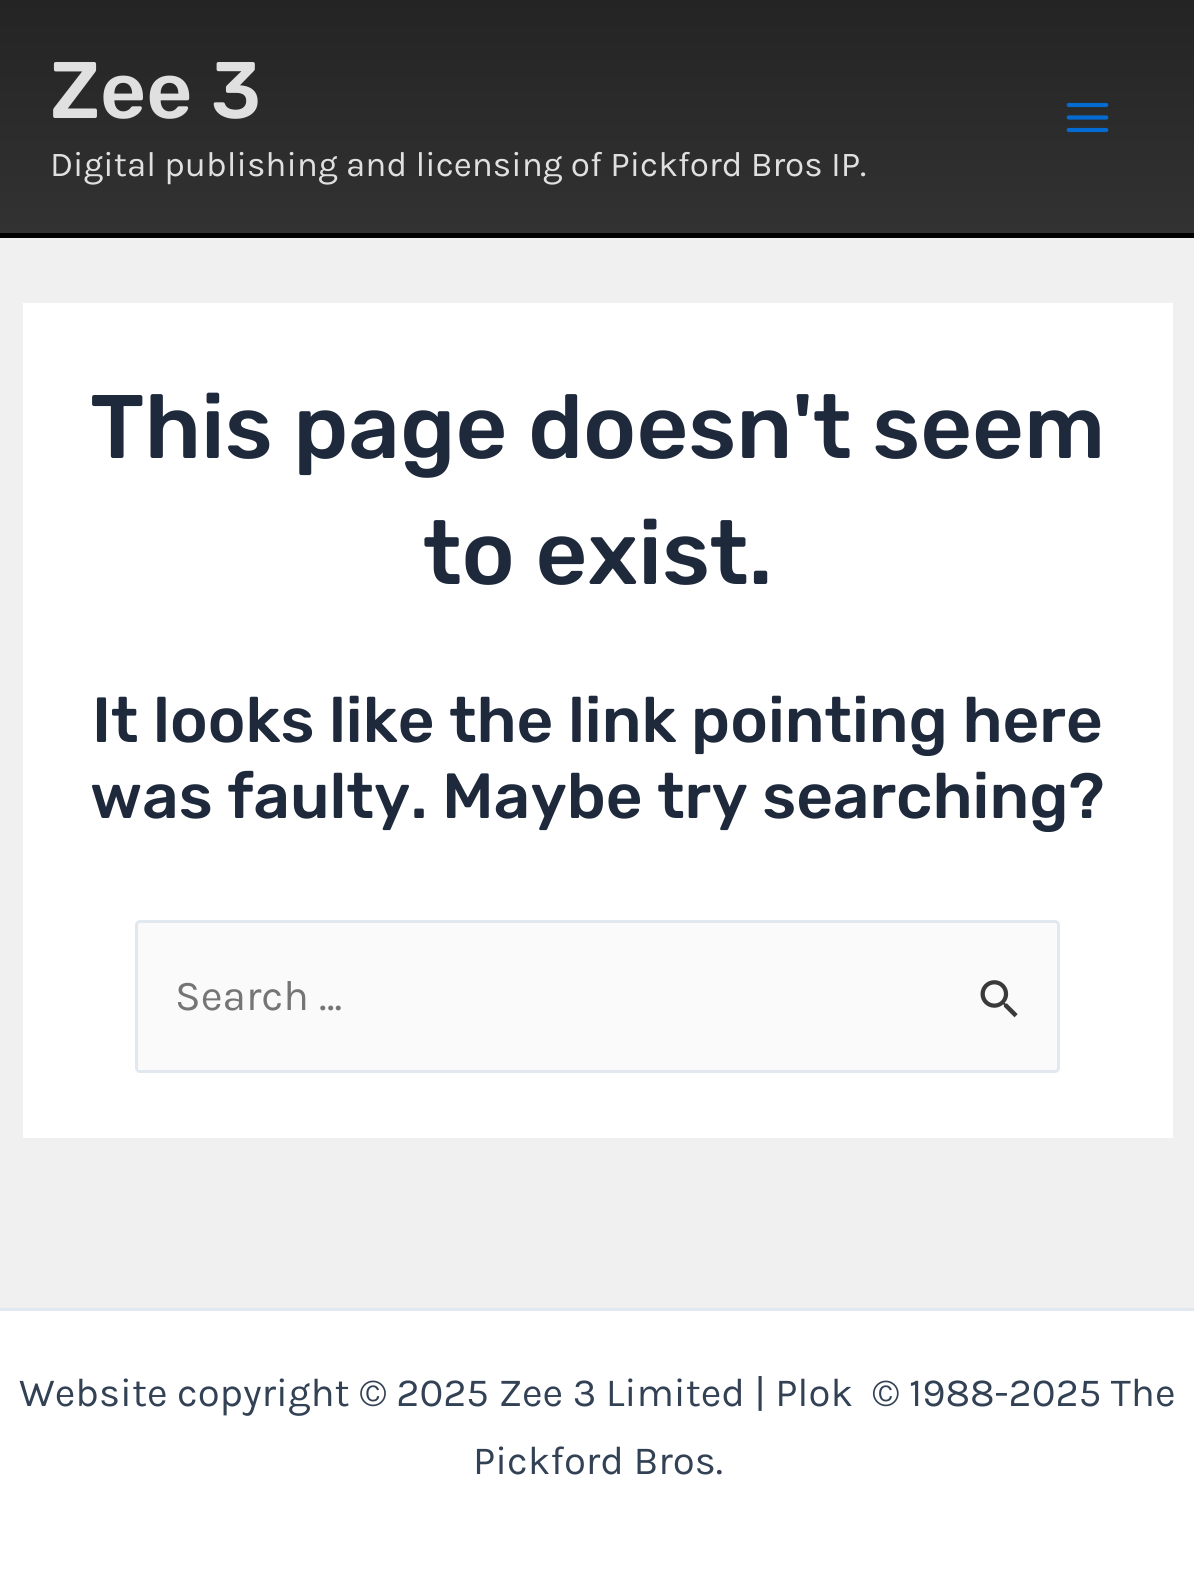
import math
import cairo

surface = cairo.ImageSurface(cairo.Format.RGB24, 1194, 1569)
ctx = cairo.Context(surface)
options = cairo.FontOptions()
options.set_hint_metrics(cairo.HintMetrics.OFF)
options.set_hint_style(cairo.HintStyle.NONE)
ctx.set_font_options(options)
ctx.set_miter_limit(4)


def ink(r, g, b):
    ctx.set_source_rgb(r / 255, g / 255, b / 255)


def write(x, y, s, family, size, color, bold=False, italic=False):
    ctx.select_font_face(family, cairo.FontSlant.ITALIC if italic else cairo.FontSlant.NORMAL, cairo.FontWeight.BOLD if bold else cairo.FontWeight.NORMAL)
    ctx.set_font_size(size)
    ink(*color)
    ctx.move_to(x, y)
    ctx.show_text(s)


def block(x, y, w, h, *color):
    ink(*color)
    ctx.rectangle(x, y, w, h)
    ctx.fill()


def round_path(x, y, w, h, r):
    ctx.new_sub_path()
    for i, (u, v) in enumerate([(x + w - r, y + h - r), (x + r, y + h - r), (x + r, y + r), (x + w - r, y + r)]):
        ctx.arc(u, v, r, i * math.pi / 2, (i + 1) * math.pi / 2)
    ctx.close_path()


def paste(path, x, y, w, h):
    ctx.save()
    ctx.set_source_surface(cairo.ImageSurface.create_from_png(path), x, y)
    ctx.rectangle(x, y, w, h)
    ctx.fill()
    ctx.restore()


s1 = dict(family="Rubik Light", size=80, color=(224, 224, 224))
s2 = dict(family="Karla", size=35, color=(224, 224, 224))
s3 = dict(family="Rubik Light", size=90, color=(30, 41, 59))
s4 = dict(family="Rubik Light", size=63.75, color=(30, 41, 59))
s5 = dict(family="Karla", size=42.5, color=(117, 117, 117))
s6 = dict(family="Karla", size=40, color=(51, 65, 85))

ink(240, 240, 240)
ctx.paint()
gradient = cairo.LinearGradient(598, 0, 598, 233)
gradient.add_color_stop_rgba(0, 0.141, 0.141, 0.141, 1)
gradient.add_color_stop_rgba(1, 0.196, 0.196, 0.196, 1)
ctx.set_source(gradient)
ctx.rectangle(0, 0, 1194, 233)
ctx.fill()
block(0, 233, 1194, 5, 0, 0, 0)
write(50, 118, "Zee 3", **s1)
write(50, 176, "Digital publishing and licensing of Pickford Bros IP.", **s2)
paste("pic1.png", 1066, 102, 43, 31)
block(23, 303, 1150, 835, 255, 255, 255)
write(90, 458, "This page doesn't seem", **s3)
write(423, 584, "to exist.", **s3)
write(92, 742, "It looks like the link pointing here", **s4)
write(90, 818, "was faulty. Maybe try searching?", **s4)
ink(250, 250, 250)
round_path(136.5, 921.5, 922, 150, 3.5)
ctx.fill_preserve()
ink(226, 232, 240)
ctx.set_line_width(3)
ctx.stroke()
write(175, 1010, "Search …", **s5)
paste("pic2.png", 980, 980, 38, 38)
block(0, 1311, 1194, 258, 255, 255, 255)
block(0, 1308, 1194, 3, 226, 232, 240)
write(19, 1406, "Website copyright © 2025 Zee 3 Limited | Plok  © 1988-2025 The", **s6)
write(473, 1474, "Pickford Bros.", **s6)
surface.write_to_png("screenshot.png")
